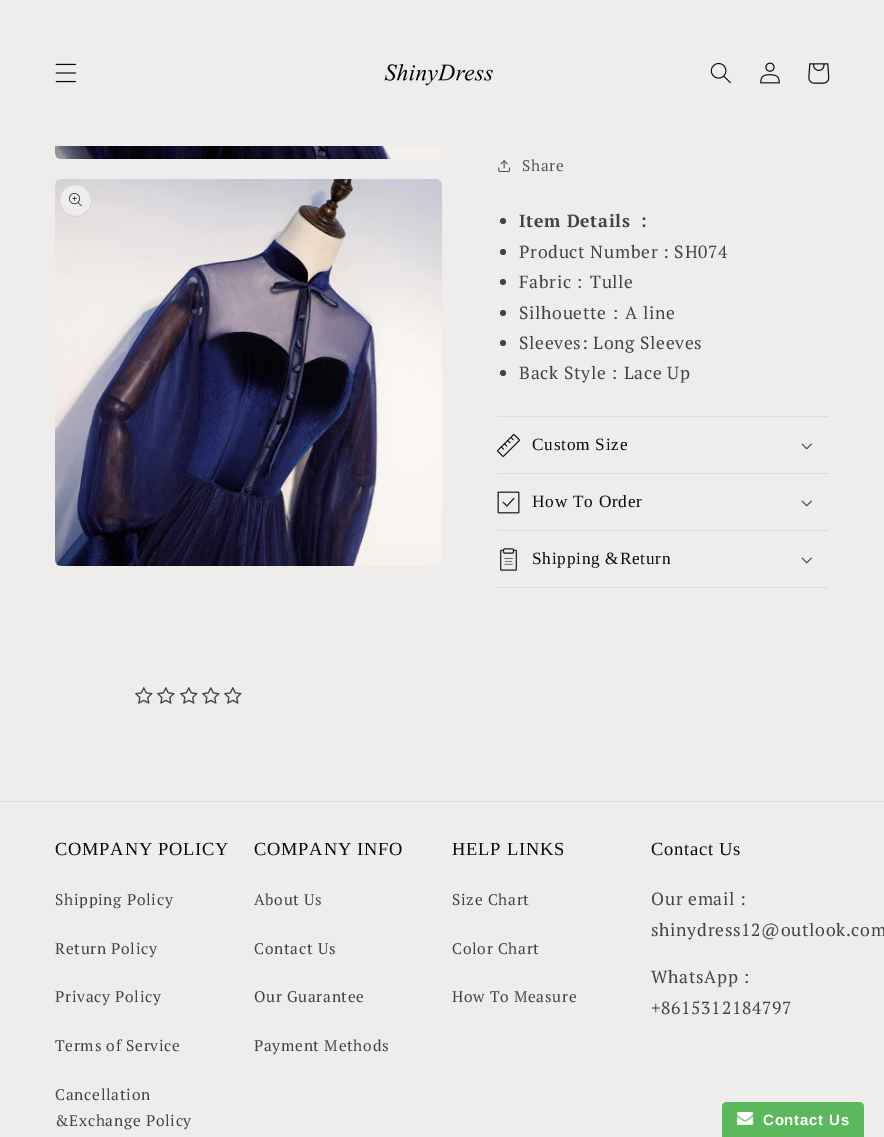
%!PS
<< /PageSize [884 1137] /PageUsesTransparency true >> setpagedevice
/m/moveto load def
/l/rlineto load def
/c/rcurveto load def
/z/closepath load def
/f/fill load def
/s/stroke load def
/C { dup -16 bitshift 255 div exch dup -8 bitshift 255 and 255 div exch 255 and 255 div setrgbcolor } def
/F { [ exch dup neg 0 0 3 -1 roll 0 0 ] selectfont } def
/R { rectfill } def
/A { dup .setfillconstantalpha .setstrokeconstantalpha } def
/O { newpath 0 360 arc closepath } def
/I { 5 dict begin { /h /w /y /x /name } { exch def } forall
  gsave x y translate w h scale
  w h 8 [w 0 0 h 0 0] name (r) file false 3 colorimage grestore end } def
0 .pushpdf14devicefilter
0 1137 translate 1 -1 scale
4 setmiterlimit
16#EFECEC C
0 0 884 1137 R
(1.rgb) 55 63 21 20 I
(2.rgb) 384 63 109 23 I
(3.rgb) 710 62 21 22 I
(4.rgb) 760 62 20 22 I
(5.rgb) 808 63 22 21 I
(6.rgb) 55 146 387 13 I
(7.rgb) 55 179 387 387 I
75.5 200.5 16.5 O f
0.1 A
16#0A0A0A C
75.5 200.5 16 O s
1 A
(8.rgb) 69 193 13 14 I
(9.rgb) 498 160 13 12 I
/PTSerif-Regular 15.5 F
16#505655 C
522 171 m .7 0 (Share) ashow
16#434343 C
503 221 3 O f
/PTSerif-Bold 17.6 F
519 227 m .7 0 (Item Details) ashow
/WenQuanYiZenHei-Bold 17.6 F
635 227 m .7 0 (：) ashow
503 252 3 O f
/PTSerif-Regular 17.6 F
519 258 m .7 0 (Product Number : SH074) ashow
503 282 3 O f
519 288 m .7 0 (Fabric) ashow
/WenQuanYiZenHei-Medium 17.6 F
571 288 m .7 0 (：) ashow
/PTSerif-Regular 17.6 F
590 288 m .7 0 (Tulle) ashow
503 313 3 O f
519 319 m .7 0 (Silhouette) ashow
/WenQuanYiZenHei-Medium 17.6 F
607 319 m .7 0 (：) ashow
/PTSerif-Regular 17.6 F
625 319 m .7 0 (A line) ashow
503 343 3 O f
519 349 m .7 0 (Sleeves: Long Sleeves) ashow
503 373 3 O f
519 379 m .7 0 (Back Style) ashow
/WenQuanYiZenHei-Medium 17.6 F
606 379 m .7 0 (：) ashow
/PTSerif-Regular 17.6 F
624 379 m .7 0 (Lace Up) ashow
16#DDDADA C
497 416 332 1 R
497 473 332 1 R
(10.rgb) 497 434 23 23 I
/LiberationSerif-Regular 17.25 F
16#0A0A0A C
532 450 m .75 0 (Custom Size) ashow
(11.rgb) 801 443 11 7 I
16#DDDADA C
497 530 332 1 R
(12.rgb) 497 491 23 23 I
16#0A0A0A C
532 507 m .75 0 (How To Order) ashow
(11.rgb) 801 500 11 7 I
16#DDDADA C
497 587 332 1 R
(13.rgb) 500 548 17 23 I
16#0A0A0A C
532 564 m .75 0 (Shipping &Return) ashow
(11.rgb) 801 557 11 7 I
(14.rgb) 135 687 18 17 I
(14.rgb) 157 687 18 17 I
(14.rgb) 180 687 18 17 I
(14.rgb) 202 687 18 17 I
(14.rgb) 224 687 18 17 I
16#DDDADA C
0 801 884 1 R
/LiberationSerif-Regular 18.5 F
16#0A0A0A C
55 855 m .75 0 (COMPANY POLICY) ashow
/PTSerif-Regular 15.5 F
16#434343 C
55 905 m .7 0 (Shipping Policy) ashow
55 954 m .7 0 (Return Policy) ashow
55 1002 m .7 0 (Privacy Policy) ashow
55 1051 m .7 0 (Terms of Service) ashow
55 1100 m .7 0 (Cancellation) ashow
55 1126 m .7 0 (&Exchange Policy) ashow
/LiberationSerif-Regular 18.5 F
16#0A0A0A C
254 855 m .75 0 (COMPANY INFO) ashow
/PTSerif-Regular 15.5 F
16#434343 C
254 905 m .7 0 (About Us) ashow
254 954 m .7 0 (Contact Us) ashow
254 1002 m .7 0 (Our Guarantee) ashow
254 1051 m .7 0 (Payment Methods) ashow
/LiberationSerif-Regular 18.5 F
16#0A0A0A C
452 855 m .75 0 (HELP LINKS) ashow
/PTSerif-Regular 15.5 F
16#434343 C
452 905 m .7 0 (Size Chart) ashow
452 954 m .7 0 (Color Chart) ashow
452 1002 m .7 0 (How To Measure) ashow
/LiberationSerif-Regular 18.5 F
16#0A0A0A C
651 855 m .75 0 (Contact Us) ashow
/PTSerif-Regular 17.6 F
16#434343 C
651 905 m .7 0 (Our email :) ashow
651 936 m .7 0 (shinydress12@outlook.com) ashow
651 983 m .7 0 (WhatsApp) ashow
/WenQuanYiZenHei-Medium 17.6 F
738 983 m .7 0 (：) ashow
/PTSerif-Regular 17.6 F
651 1014 m .7 0 (+8615312184797) ashow
16#5CB85C C
727 1102 m 132 0 l 3 0 5 2 5 5 c 0 30 l -142 0 l 0 -30 l 0 -3 2 -5 5 -5 c z f
(15.rgb) 736 1112 18 13 I
/LiberationSans-Bold 15 F
16#FFFFFF C
763 1125 m .75 0 (Contact Us) ashow
.poppdf14devicefilter showpage
